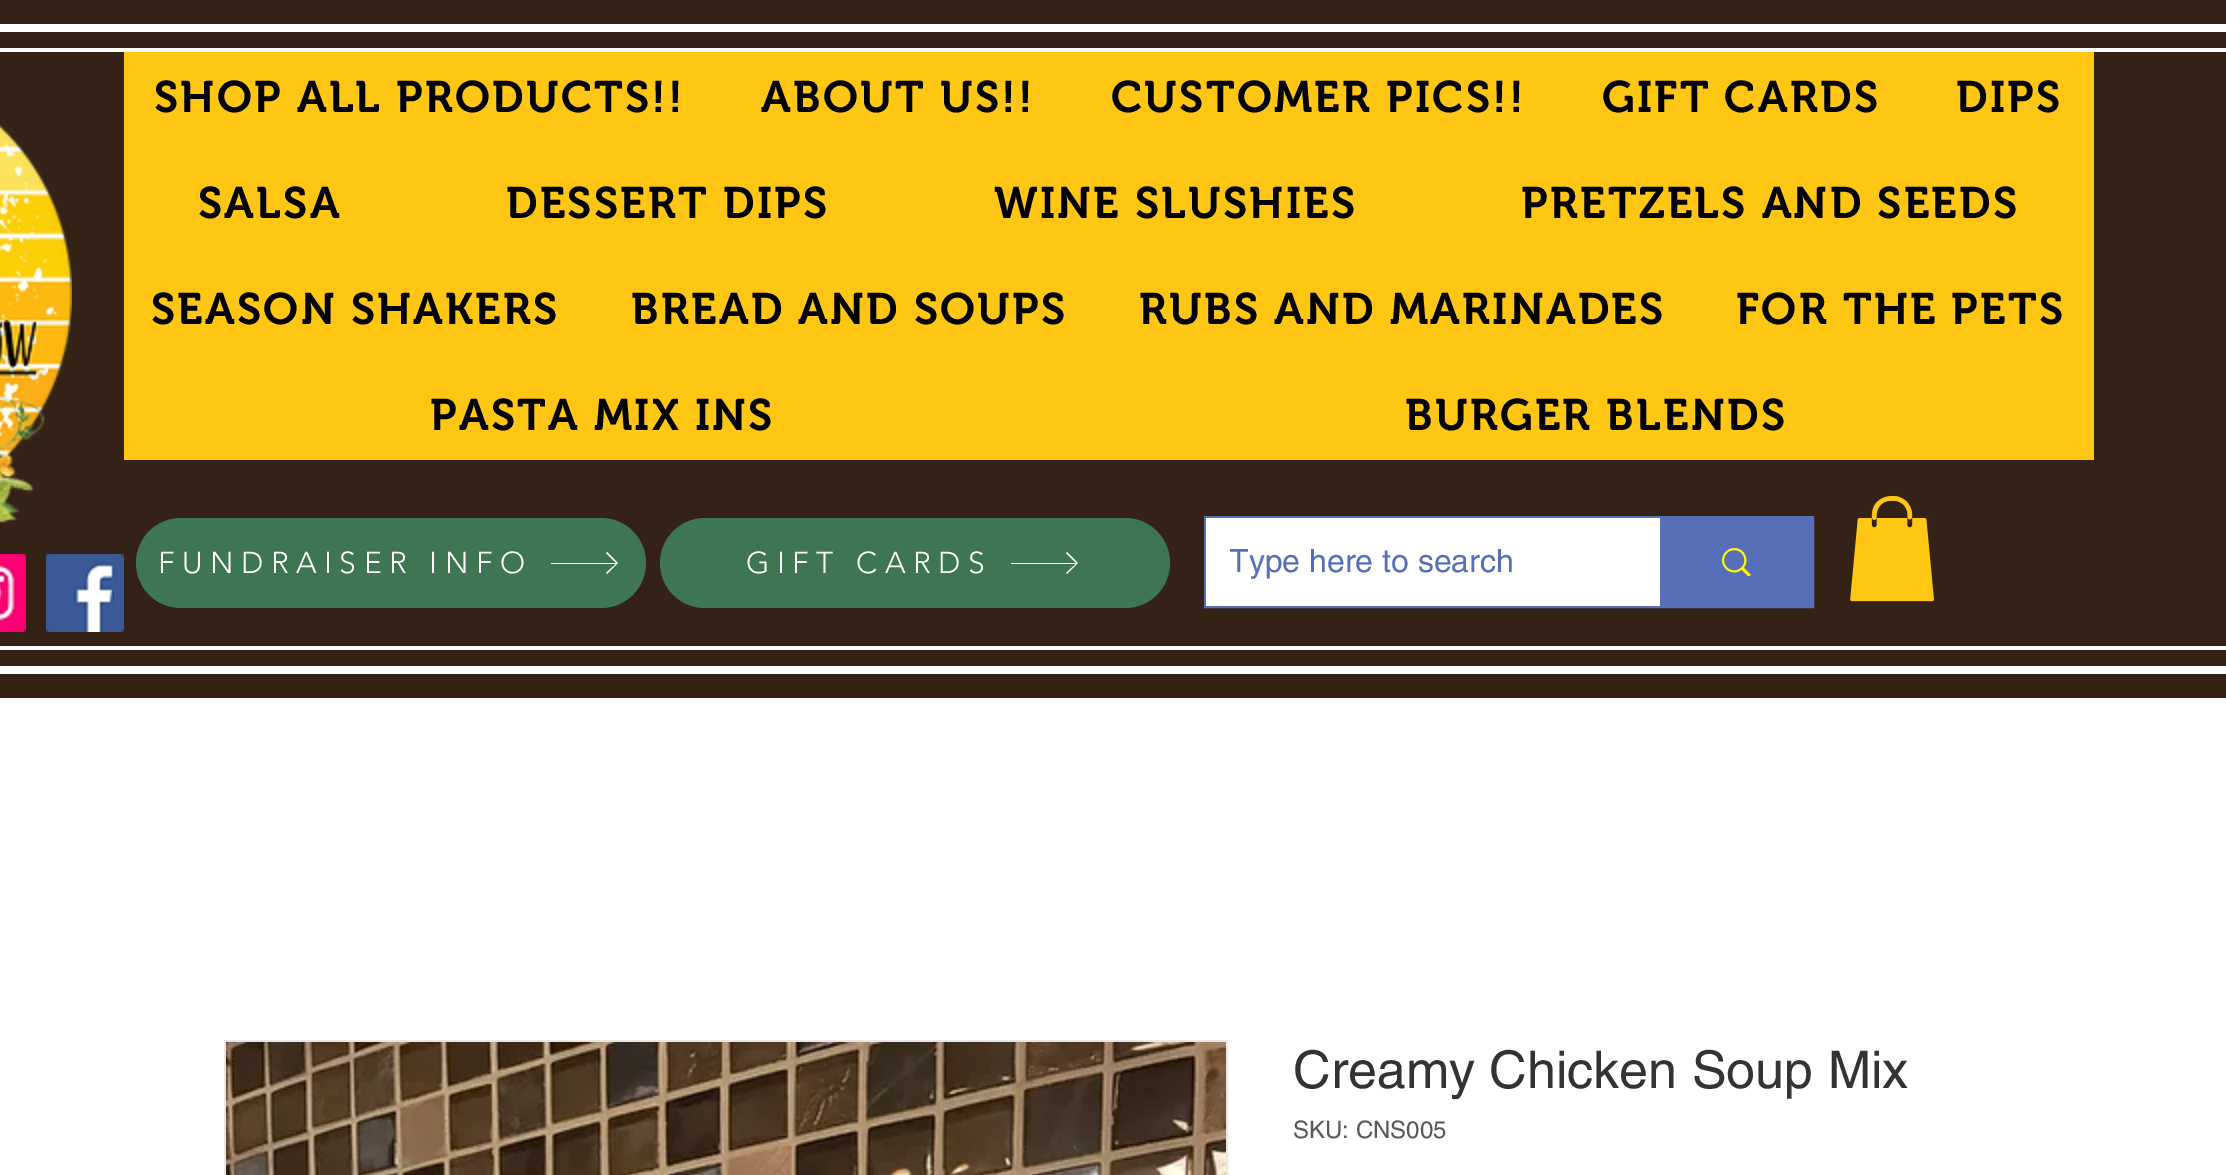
%!PS
<< /PageSize [2226 1175] >> setpagedevice
/m/moveto load def
/l/rlineto load def
/z/closepath load def
/f/fill load def
/q/gsave load def
/Q_/grestore load def
/w/setlinewidth load def
/C { dup -16 bitshift 255 div exch dup -8 bitshift 255 and 255 div exch 255 and 255 div setrgbcolor } def
/F { [ exch dup neg 0 0 3 -1 roll 0 0 ] selectfont } def
/T { moveto show } def
/R { rectfill } def
/Q { 5 dict begin { /r /h /w /y /x } { exch def } forall
  x r add y moveto x w add y 2 copy h add r arct x w add y h add x 1 index r arct
  x y h add x y r arct x y 2 copy exch w add exch r arct closepath end } def
/I { 5 dict begin { /h /w /y /x /name } { exch def } forall
  gsave x y translate w h scale
  w h 8 [w 0 0 h 0 0] name (r) file false 3 colorimage grestore end } def
0 1175 translate 1 -1 scale
4 setmiterlimit
16#FFFFFF C
0 0 2226 1175 R
16#342216 C
0 0 2226 698 R
16#FFFFFF C
0 24 2226 8 R
0 666 2226 8 R
0 48 2226 4 R
0 646 2226 4 R
(1.rgb) 0 124 72 399 I
16#FFC714 C
124 52 1970 408 R
/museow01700-SemiBold 44 F
16#000000 C
154 112 m 2.25 0 (SHOP ALL PRODUCTS!!) ashow
761 112 m 2.25 0 (ABOUT US!!) ashow
1111 112 m 2.25 0 (CUSTOMER PICS!!) ashow
1602 112 m 2.25 0 (GIFT CARDS) ashow
1956 112 m 2.25 0 (DIPS) ashow
198 218 m 2.25 0 (SALSA) ashow
506 218 m 2.25 0 (DESSERT DIPS) ashow
994 218 m 2.25 0 (WINE SLUSHIES) ashow
1521 218 m 2.25 0 (PRETZELS AND SEEDS) ashow
151 324 m 2.25 0 (SEASON SHAKERS) ashow
631 324 m 2.25 0 (BREAD AND SOUPS) ashow
1139 324 m 2.25 0 (RUBS AND MARINADES) ashow
1736 324 m 2.25 0 (FOR THE PETS) ashow
430 430 m 2.25 0 (PASTA MIX INS) ashow
1405 430 m 2.25 0 (BURGER BLENDS) ashow
(2.rgb) 0 554 26 78 I
(3.rgb) 46 554 78 78 I
16#3F7652 C
136 518 510 90 45 Q f
/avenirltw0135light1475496-Light 30 F
16#FFFFFF C
158 573 m 7.5 0 (FUNDRAISER INFO) ashow
607 552 m -1 1 l 10 10 l -65 0 l 0 1 l 65 0 l -10 9 l 1 1 l 11 -11 l z f
16#3F7652 C
660 518 510 90 45 Q f
16#FFFFFF C
746 573 m 7.5 0 (GIFT CARDS) ashow
1067 552 m -1 1 l 10 10 l -65 0 l 0 1 l 65 0 l -10 9 l 1 1 l 11 -11 l z f
16#566FB8 C
2 w
1205 517 608 90 rectstroke
16#FFFFFF C
1206 518 454 88 R
q
1230 542 346 38 rectclip
/helvetica-Regular 32 F
16#566FB8 C
(Type here to search) 1229 572 T
Q_
16#566FB8 C
1660 518 152 88 R
(4.rgb) 1722 548 29 28 I
(5.rgb) 1850 496 84 106 I
16#E8E6E6 C
225 1041 1002 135 rectstroke
(6.rgb) 226 1042 1000 133 I
/helvetica-Regular 52 F
16#333333 C
(Creamy Chicken Soup Mix) 1293 1088 T
/helvetica-Regular 24 F
16#595959 C
(SKU: CNS005) 1293 1138 T
showpage
